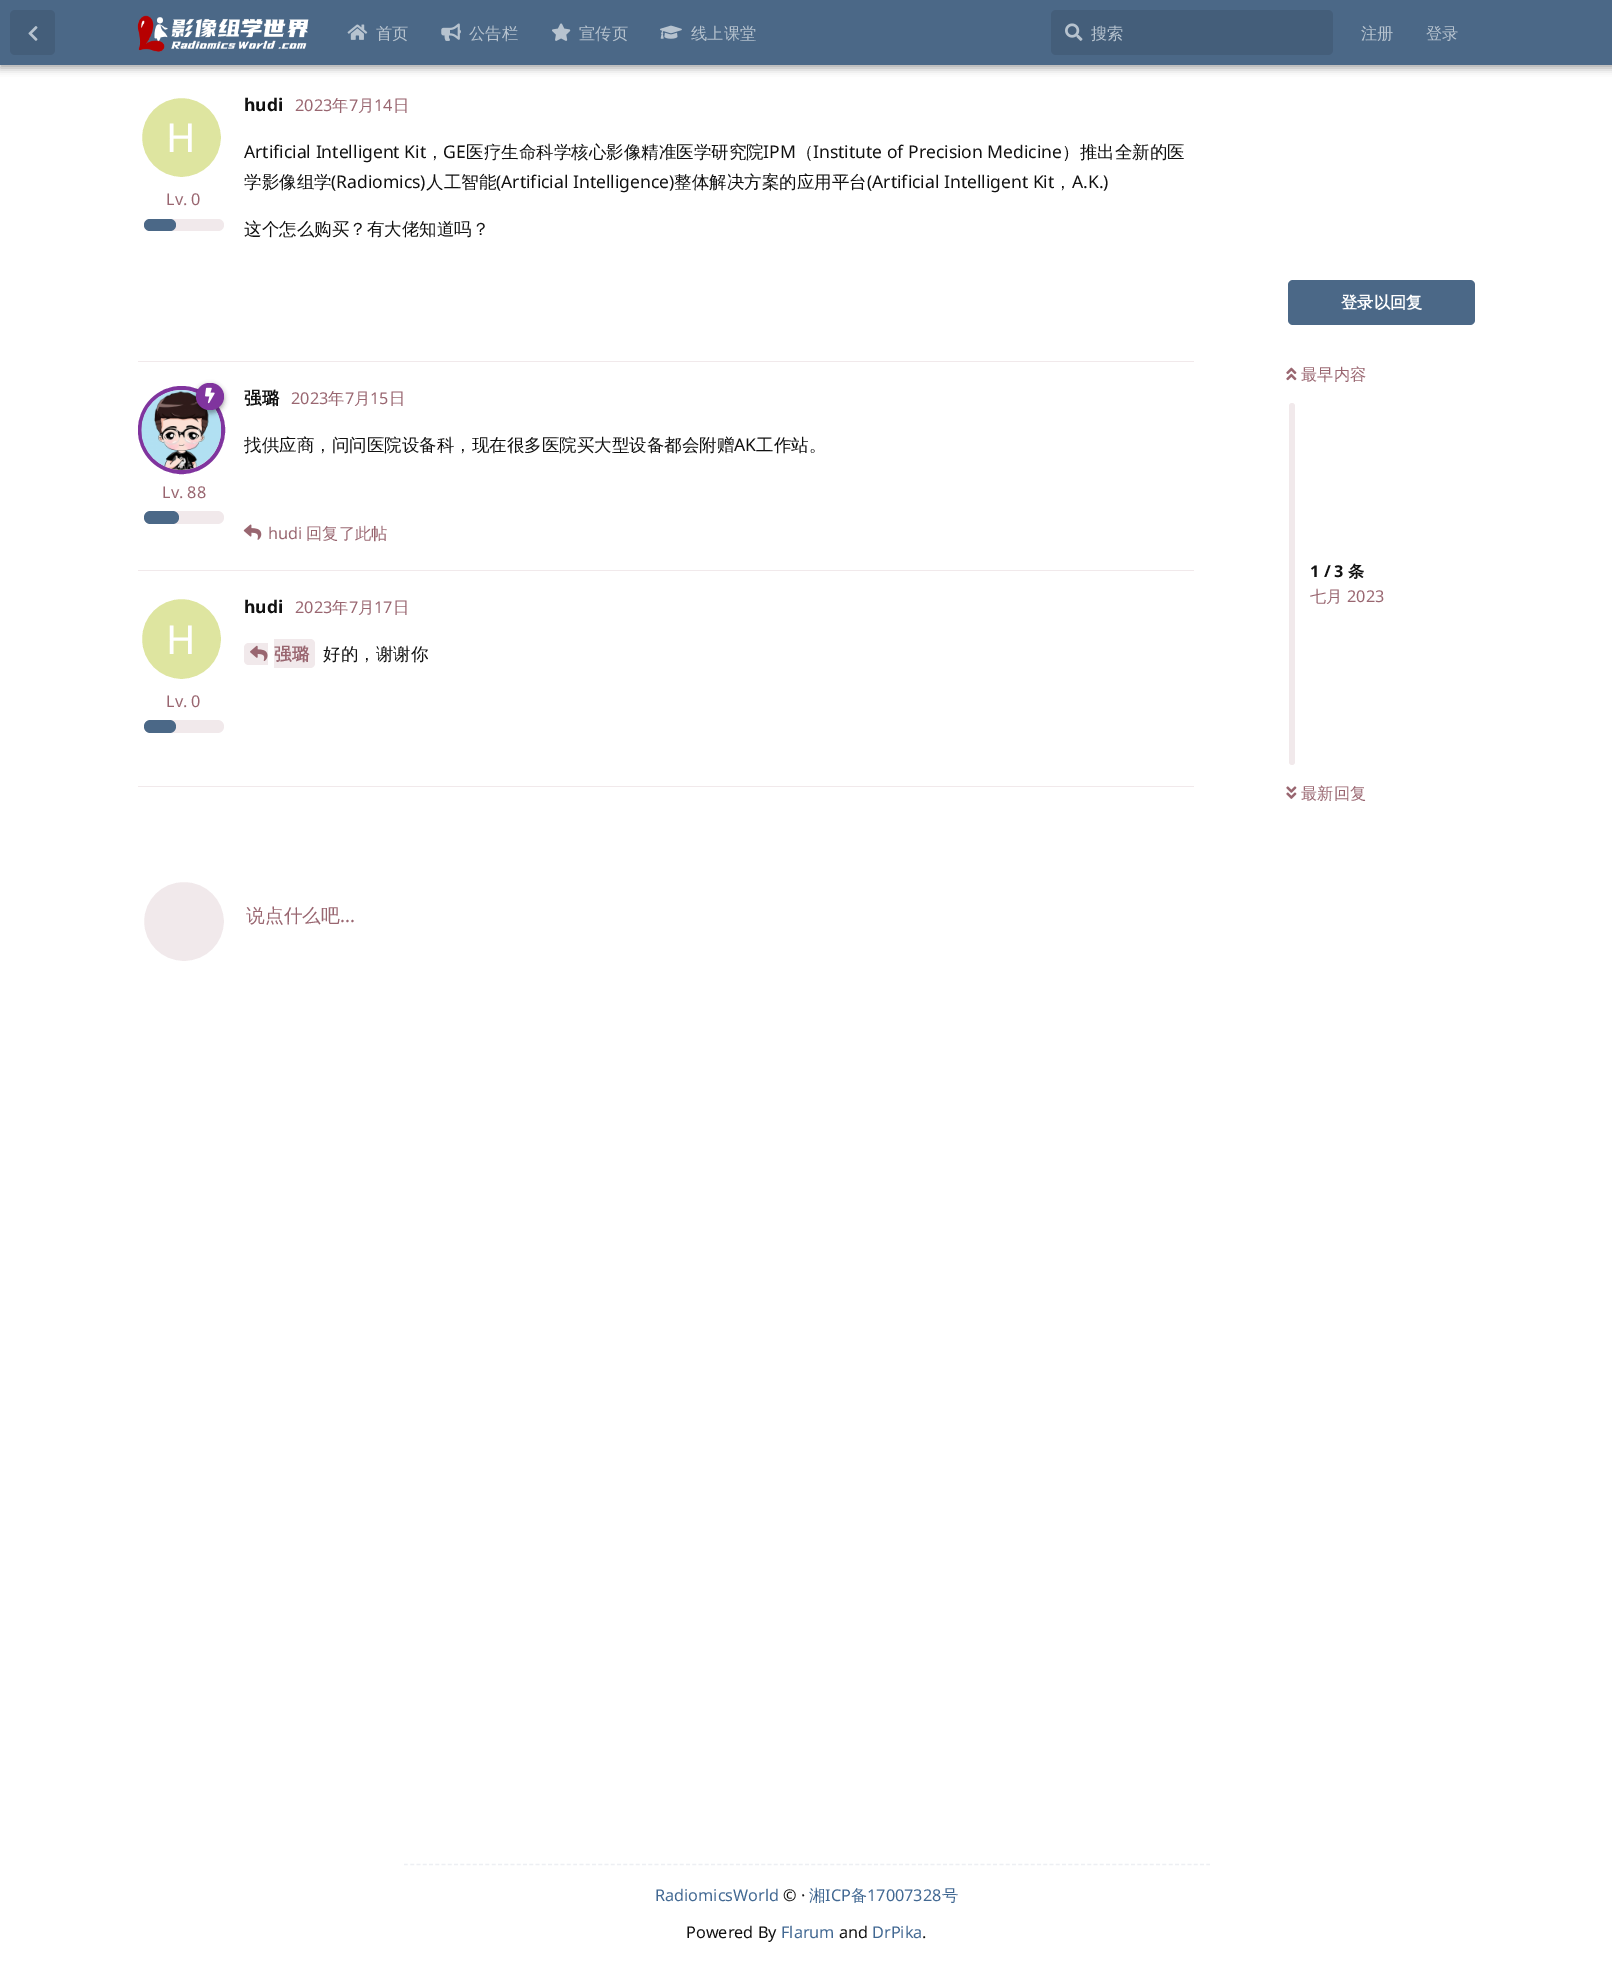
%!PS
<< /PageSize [1612 1967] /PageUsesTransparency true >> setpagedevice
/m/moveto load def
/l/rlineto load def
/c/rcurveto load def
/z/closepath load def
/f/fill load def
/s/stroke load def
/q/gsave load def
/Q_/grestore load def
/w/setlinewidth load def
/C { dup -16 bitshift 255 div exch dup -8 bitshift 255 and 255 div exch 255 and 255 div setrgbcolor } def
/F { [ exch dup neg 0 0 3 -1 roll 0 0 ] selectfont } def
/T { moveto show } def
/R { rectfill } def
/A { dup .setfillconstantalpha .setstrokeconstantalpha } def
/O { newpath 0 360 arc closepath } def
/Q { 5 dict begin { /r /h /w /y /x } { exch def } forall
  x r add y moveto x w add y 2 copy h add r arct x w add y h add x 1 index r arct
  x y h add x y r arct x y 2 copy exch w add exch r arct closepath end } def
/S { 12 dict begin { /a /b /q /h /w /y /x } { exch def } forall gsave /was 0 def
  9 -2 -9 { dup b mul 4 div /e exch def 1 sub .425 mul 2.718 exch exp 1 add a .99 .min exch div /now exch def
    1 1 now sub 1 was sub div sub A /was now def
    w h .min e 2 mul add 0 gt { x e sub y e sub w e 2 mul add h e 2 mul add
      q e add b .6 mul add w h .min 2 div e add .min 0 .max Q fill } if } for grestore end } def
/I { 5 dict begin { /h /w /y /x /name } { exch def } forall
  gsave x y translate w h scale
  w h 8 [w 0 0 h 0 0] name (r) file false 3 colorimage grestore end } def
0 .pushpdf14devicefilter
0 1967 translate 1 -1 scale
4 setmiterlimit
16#FFFFFF C
0 0 1612 1967 R
16#000000 C
0 3 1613 65 0 4 .35 S
16#4B6887 C
0 0 1612 65 R
16#445E7A C
10 10 45 45 5 Q f
(1.rgb) 28 26 10 15 I
(2.rgb) 137 15 172 37 I
(3.rgb) 347 24 21 16 I
/WenQuanYiZenHei-Medium 16.25 F
16#B7C3CF C
(首页) 376 39 T
(4.rgb) 441 23 20 18 I
(公告栏) 469 39 T
(5.rgb) 552 23 19 18 I
(宣传页) 579 39 T
(6.rgb) 660 25 22 14 I
(线上课堂) 691 39 T
16#445E7A C
1051 10 282 45 5 Q f
(7.rgb) 1065 23 18 18 I
16#B7C3CF C
(搜索) 1091 39 T
(注册) 1361 39 T
(登录) 1426 39 T
16#F1E9EB C
138 361 1056 1 R
/NotoSans-Bold 17.5 F
16#111111 C
(hudi) 244 111 T
16#DEE5A0 C
181.5 137.5 41.5 O q f Q_
16#FFFFFF C
4 w
s
/NotoSans-Regular 40 F
(H) 166 152 T
/NotoSans-Regular 16.25 F
16#996670 C
(Lv. 0) 166 205 T
16#F1E9EB C
144 219 80 12 6 Q f
16#4B6887 C
144 219 32 12 6 Q f
16#996670 C
(2023) 295 111 T
/WenQuanYiZenHei-Medium 16.25 F
(年) 332 111 T
/NotoSans-Regular 16.25 F
(7) 349 111 T
/WenQuanYiZenHei-Medium 16.25 F
(月) 358 111 T
/NotoSans-Regular 16.25 F
(14) 374 111 T
/WenQuanYiZenHei-Medium 16.25 F
(日) 393 111 T
/NotoSans-Regular 17.5 F
16#111111 C
(Artificial Intelligent Kit) 244 158 T
/WenQuanYiZenHei-Medium 17.5 F
(，) 426 158 T
/NotoSans-Regular 17.5 F
(GE) 443 158 T
/WenQuanYiZenHei-Medium 17.5 F
(医疗生命科学核心影像精准医学研究院) 466 158 T
/NotoSans-Regular 17.5 F
(IPM) 763 158 T
/WenQuanYiZenHei-Medium 17.5 F
(（) 796 158 T
/NotoSans-Regular 17.5 F
(Institute of Precision Medicine) 813 158 T
/WenQuanYiZenHei-Medium 17.5 F
(）推出全新的医) 1062 158 T
(学影像组学) 244 188 T
/NotoSans-Regular 17.5 F
(\(Radiomics\)) 331 188 T
/WenQuanYiZenHei-Medium 17.5 F
(人工智能) 426 188 T
/NotoSans-Regular 17.5 F
(\(Artificial Intelligence\)) 496 188 T
/WenQuanYiZenHei-Medium 17.5 F
(整体解决方案的应用平台) 674 188 T
/NotoSans-Regular 17.5 F
(\(Artificial Intelligent Kit) 867 188 T
/WenQuanYiZenHei-Medium 17.5 F
(，) 1054 188 T
/NotoSans-Regular 17.5 F
(A.K.\)) 1072 188 T
/WenQuanYiZenHei-Medium 17.5 F
(这个怎么购买？有大佬知道吗？) 244 235 T
16#F1E9EB C
138 570 1056 1 R
140 388 83 84 41.5 Q q f Q_
16#80349E C
s
(9.rgb) 141 390 81 80 I
16#000000 C
196 385 28 28 14 2.5 .35 S
16#80349E C
196 383 28 27 13.5 Q f
(8.rgb) 205 387 10 17 I
/WenQuanYiZenHei-Bold 17.5 F
16#111111 C
(强璐) 244 404 T
/NotoSans-Regular 16.25 F
16#996670 C
(Lv. 88) 162 498 T
16#F1E9EB C
144 511 80 13 6.5 Q f
16#4B6887 C
144 511 35 13 6.5 Q f
16#996670 C
(2023) 291 404 T
/WenQuanYiZenHei-Medium 16.25 F
(年) 328 404 T
/NotoSans-Regular 16.25 F
(7) 345 404 T
/WenQuanYiZenHei-Medium 16.25 F
(月) 354 404 T
/NotoSans-Regular 16.25 F
(15) 370 404 T
/WenQuanYiZenHei-Medium 16.25 F
(日) 389 404 T
/WenQuanYiZenHei-Medium 17.5 F
16#111111 C
(找供应商，问问医院设备科，现在很多医院买大型设备都会附赠) 244 451 T
/NotoSans-Regular 17.5 F
(AK) 734 451 T
/WenQuanYiZenHei-Medium 17.5 F
(工作站。) 756 451 T
(10.rgb) 243 524 19 16 I
/NotoSans-Regular 16.25 F
16#996670 C
(hudi) 268 539 T
/WenQuanYiZenHei-Medium 16.25 F
(回复了此帖) 306 539 T
16#F1E9EB C
138 786 1056 1 R
/NotoSans-Bold 17.5 F
16#111111 C
(hudi) 244 613 T
16#DEE5A0 C
140 597 83 84 41.5 Q q f Q_
16#FFFFFF C
s
/NotoSans-Regular 40 F
(H) 166 654 T
/NotoSans-Regular 16.25 F
16#996670 C
(Lv. 0) 166 707 T
16#F1E9EB C
144 720 80 13 6.5 Q f
16#4B6887 C
144 720 32 13 6.5 Q f
16#996670 C
(2023) 295 613 T
/WenQuanYiZenHei-Medium 16.25 F
(年) 332 613 T
/NotoSans-Regular 16.25 F
(7) 349 613 T
/WenQuanYiZenHei-Medium 16.25 F
(月) 358 613 T
/NotoSans-Regular 16.25 F
(17) 374 613 T
/WenQuanYiZenHei-Medium 16.25 F
(日) 393 613 T
16#F1E9EB C
249 643 m 19 0 l 0 22 l -19 0 l -3 0 -5 -2 -5 -5 c 0 -12 l 0 -3 2 -5 5 -5 c z f
274 639 m 36 0 l 3 0 5 2 5 5 c 0 19 l 0 3 -2 5 -5 5 c -36 0 l z f
(11.rgb) 250 645 18 16 I
/WenQuanYiZenHei-Bold 17.5 F
16#996670 C
(强璐) 274 660 T
/WenQuanYiZenHei-Medium 17.5 F
16#111111 C
(好的，谢谢你) 323 660 T
16#F1E9EB C
142 880 84 83 41.5 Q q f Q_
16#FFFFFF C
s
/WenQuanYiZenHei-Medium 18.75 F
16#996670 C
(说点什么吧) 246 922 T
/NotoSans-Regular 18.75 F
(...) 340 922 T
16#4B6887 C
1288 280 187 45 5 Q f
/WenQuanYiZenHei-Bold 16.25 F
16#FFFFFF C
(登录以回复) 1341 308 T
(12.rgb) 1286 367 11 14 I
/WenQuanYiZenHei-Medium 16.25 F
16#996670 C
(最早内容) 1301 380 T
16#F1E9EB C
1289 403 6 362 3 Q f
/NotoSans-Bold 16.25 F
16#111111 C
(1 / 3) 1310 577 T
/WenQuanYiZenHei-Bold 16.25 F
(条) 1348 577 T
/WenQuanYiZenHei-Medium 16.25 F
16#996670 C
(七月) 1310 602 T
/NotoSans-Regular 16.25 F
(2023) 1347 602 T
(13.rgb) 1286 786 11 13 I
/WenQuanYiZenHei-Medium 16.25 F
(最新回复) 1301 799 T
16#EDEFF3 C
1.2 w
[3.75 2.52] 0 setdash
404 1864.5 m 806 0 l s
/NotoSans-Regular 16.25 F
16#416892 C
(RadiomicsWorld) 655 1901 T
16#111111 C
(© ·) 783 1901 T
/WenQuanYiZenHei-Medium 16.25 F
16#416892 C
(湘) 809 1901 T
/NotoSans-Regular 16.25 F
(ICP) 825 1901 T
/WenQuanYiZenHei-Medium 16.25 F
(备) 851 1901 T
/NotoSans-Regular 16.25 F
(17007328) 867 1901 T
/WenQuanYiZenHei-Medium 16.25 F
(号) 942 1901 T
/NotoSans-Regular 16.25 F
16#111111 C
(Powered By) 686 1938 T
16#416892 C
(Flarum) 781 1938 T
16#111111 C
(and) 839 1938 T
16#416892 C
(DrPika) 872 1938 T
16#111111 C
(.) 922 1938 T
.poppdf14devicefilter showpage
